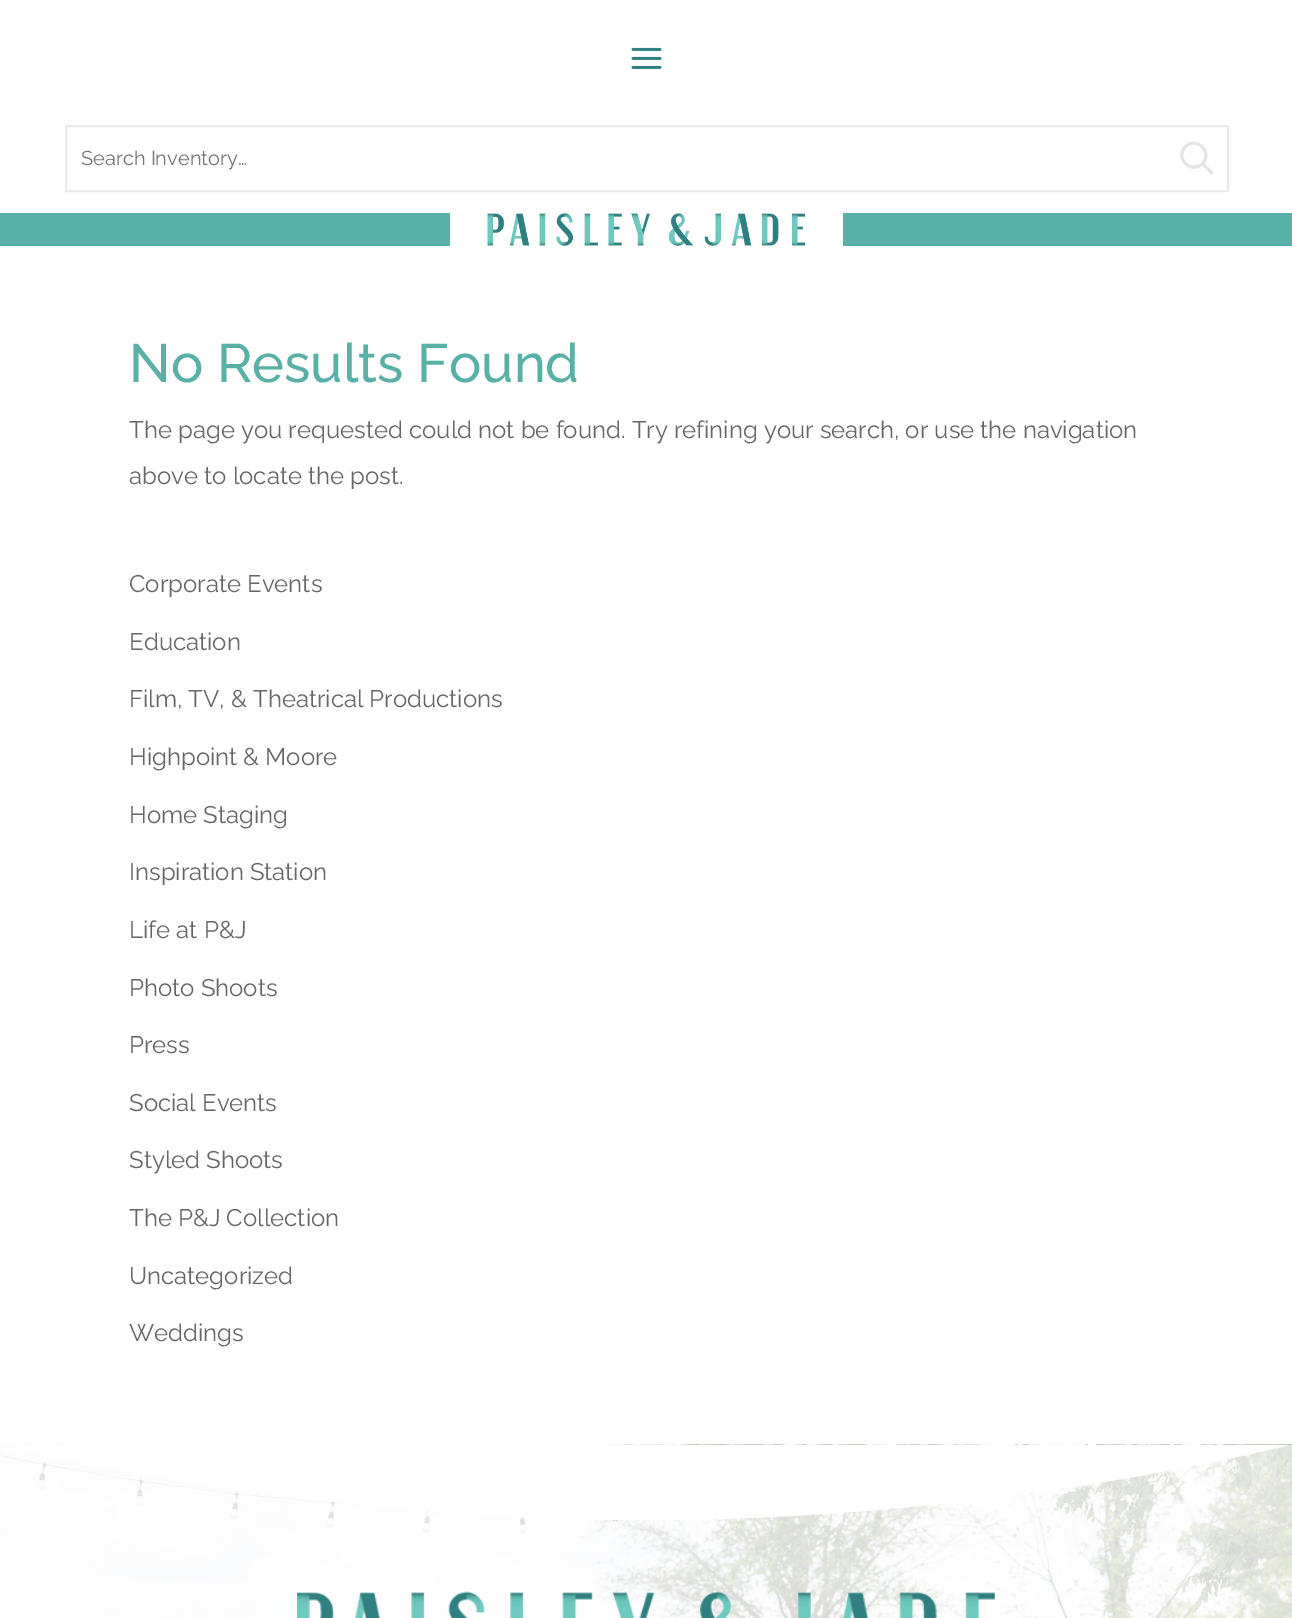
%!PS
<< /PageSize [1292 1618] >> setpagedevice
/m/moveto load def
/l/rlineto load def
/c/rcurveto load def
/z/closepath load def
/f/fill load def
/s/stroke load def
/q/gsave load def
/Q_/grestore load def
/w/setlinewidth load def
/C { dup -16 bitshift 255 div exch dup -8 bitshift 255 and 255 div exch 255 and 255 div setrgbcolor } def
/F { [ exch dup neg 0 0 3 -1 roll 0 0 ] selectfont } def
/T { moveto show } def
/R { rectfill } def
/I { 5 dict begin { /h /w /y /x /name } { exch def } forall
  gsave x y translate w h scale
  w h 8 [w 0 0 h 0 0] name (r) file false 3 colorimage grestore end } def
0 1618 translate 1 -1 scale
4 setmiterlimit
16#FFFFFF C
0 0 1292 1618 R
(1.rgb) 631 47 31 22 I
16#EAEAEA C
2 w
66 126 1162 65 rectstroke
/Raleway-Regular 20 F
16#757575 C
(Search Inventory…) 81 165 T
16#E3E5E9 C
3 w
1185.5 146.5 m 11 -11 28 6 17 17 c -11.5 11.5 -28.5 -5.5 -17 -17 c z s
2 setlinecap
1203 164 m 8.5 8.5 l s
16#59B0A7 C
0 213 1292 33 R
16#FFFFFF C
450 213 393 33 R
(2.rgb) 487 213 318 33 I
/Raleway-Medium 54 F
16#59B0A7 C
(No Results Found) 129 382 T
/Raleway-Regular 24 F
16#666666 C
(The page you requested could not be found. Try refining your search, or use the navigation) 129 438 T
(above to locate the post.) 129 484 T
(Corporate Events) 129 592 T
(Education) 129 650 T
(Film, TV, & Theatrical Productions) 129 707 T
(Highpoint & Moore) 129 765 T
(Home Staging) 129 823 T
(Inspiration Station) 129 880 T
(Life at P&J) 129 938 T
(Photo Shoots) 129 996 T
(Press) 129 1053 T
(Social Events) 129 1111 T
(Styled Shoots) 129 1168 T
(The P&J Collection) 129 1226 T
(Uncategorized) 129 1284 T
(Weddings) 129 1341 T
(3.rgb) 0 1444 1292 174 I
q
0 1445 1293 75 rectclip
16#FFFFFF C
646 1520 m -357 0 -646 -76 -646 -76 c 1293 0 l 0 0 -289 76 -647 76 c z f
Q_
(4.rgb) 297 1591 698 27 I
showpage
